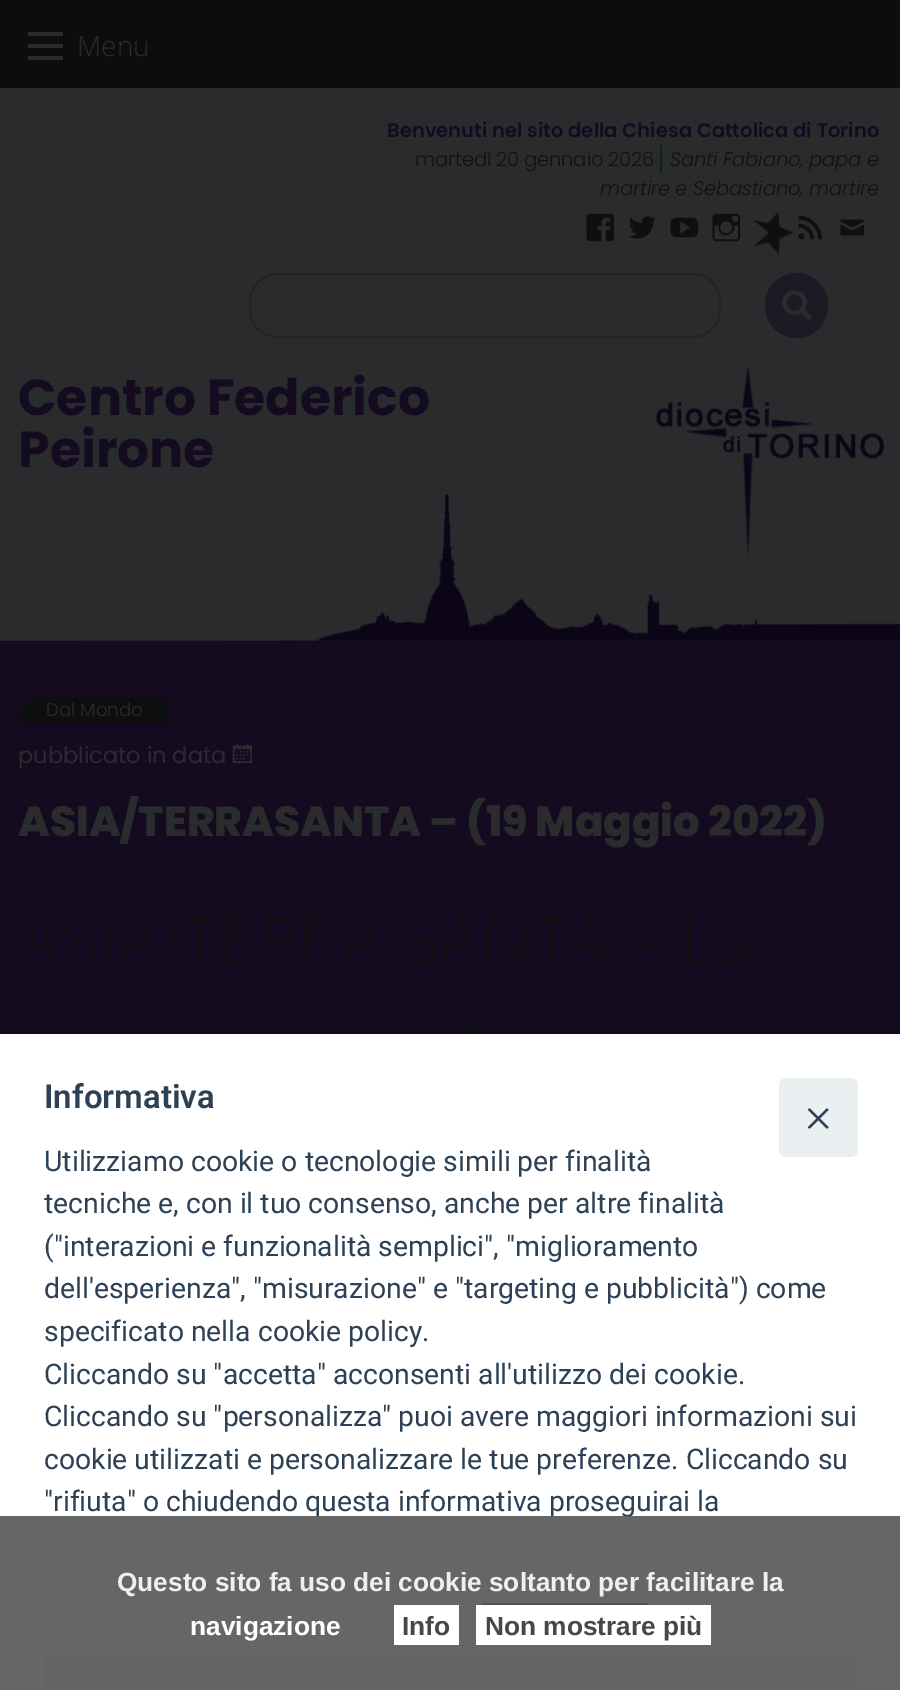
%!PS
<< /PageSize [900 1690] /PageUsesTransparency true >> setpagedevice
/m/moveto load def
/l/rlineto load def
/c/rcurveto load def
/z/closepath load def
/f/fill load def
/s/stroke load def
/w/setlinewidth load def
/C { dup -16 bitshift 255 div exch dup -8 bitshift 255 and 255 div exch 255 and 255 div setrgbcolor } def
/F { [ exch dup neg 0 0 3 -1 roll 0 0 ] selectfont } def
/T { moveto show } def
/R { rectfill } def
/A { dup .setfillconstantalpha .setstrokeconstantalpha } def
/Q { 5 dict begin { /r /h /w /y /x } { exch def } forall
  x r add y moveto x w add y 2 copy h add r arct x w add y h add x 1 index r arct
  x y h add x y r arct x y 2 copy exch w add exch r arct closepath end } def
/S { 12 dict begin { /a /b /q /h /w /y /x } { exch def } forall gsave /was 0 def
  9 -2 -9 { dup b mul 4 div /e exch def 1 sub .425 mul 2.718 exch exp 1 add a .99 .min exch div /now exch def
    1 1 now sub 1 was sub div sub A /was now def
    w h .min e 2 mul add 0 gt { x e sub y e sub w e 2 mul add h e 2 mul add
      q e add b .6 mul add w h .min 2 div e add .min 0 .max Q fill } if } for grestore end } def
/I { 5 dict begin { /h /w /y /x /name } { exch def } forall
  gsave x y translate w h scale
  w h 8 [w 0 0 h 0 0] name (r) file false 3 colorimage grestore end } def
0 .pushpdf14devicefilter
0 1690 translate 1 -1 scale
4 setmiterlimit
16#292B2D C
0 0 900 1690 R
16#0B0D0E C
0 0 900 88 R
16#2A2B2D C
28 56 35 4 R
28 44 35 4 R
28 32 35 4 R
/OpenSans-Light 28 F
(Menu) 77 56 T
(1.rgb) 0 494 900 147 I
/Poppins-SemiBold 19.6 F
16#140B21 C
(Benvenuti nel sito della Chiesa Cattolica di Torino) 387 137 T
/Poppins-Light 19.6 F
16#101113 C
415 166 m -.2 0 (martedì 20 gennaio 2026) ashow
/Poppins-LightItalic 19.6 F
670 166 m -.2 0 (Santi Fabiano, papa e) ashow
16#0E2314 C
660 145 2 28 R
16#101113 C
600 195 m -.2 0 (martire e Sebastiano, martire) ashow
(2.rgb) 586 213 29 29 I
(3.rgb) 628 216 28 23 I
(4.rgb) 670 217 29 21 I
(5.rgb) 712 213 29 29 I
(6.rgb) 753 211 41 43 I
(7.rgb) 798 215 24 25 I
(8.rgb) 840 219 25 17 I
16#222325 C
2 w
250 274 470 63 27 Q s
16#1D1925 C
765 273 63 65 31.5 Q f
(9.rgb) 782 290 30 30 I
/Poppins-Bold 50.5 F
16#140B21 C
(Centro Federico) 18 415 T
(Peirone) 18 467 T
(10.rgb) 656 366 228 190 I
0 641 900 393 R
16#0C0E10 C
44 697 m 126 0 l 0 26 l -152 0 l 0 -14.5 11.5 -26 26 -26 c z f
/Poppins-Light 18.25 F
16#2A2B2D C
(Dal Mondo) 46 716 T
/Poppins-Regular 22.5 F
(pubblicato in data) 18 763 T
(11.rgb) 232 743 20 20 I
/Poppins-ExtraBold 42 F
(ASIA/TERRASANTA – \(19 Maggio 2022\)) 18 836 T
/OpenSans-Light 70 F
16#101113 C
(ASIA/TERRA SANTA – La) 18 966 T
(“) 462 1064 T
16#020203 C
0 1054 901 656 0 29.5 .28 S
16#FFFFFF C
0 1034 900 656 R
16#EAEFF2 C
779 1078 79 79 7 Q f
16#2D4156 C
828 1109 m .5 .5 .5 1 0 1.5 c -17.5 17.5 l -.5 .5 -1.5 .5 -2 0 c -.5 -.5 -.5 -1 0 -1.5 c 17.5 -17.5 l .5 -.5 1.5 -.5 2 0 c z f
808.5 1109 m .5 -.5 1.5 -.5 2 0 c 17.5 17.5 l .5 .5 .5 1 0 1.5 c -.5 .5 -1.5 .5 -2 0 c -17.5 -17.5 l -.5 -.5 -.5 -1 0 -1.5 c z f
/Roboto-SemiBold 33 F
(Informativa) 44 1108 T
/Roboto-Regular 28.35 F
(Utilizziamo cookie o tecnologie simili per finalità) 44 1171 T
(tecniche e, con il tuo consenso, anche per altre finalità) 44 1213 T
(\("interazioni e funzionalità semplici", "miglioramento) 44 1256 T
(dell'esperienza", "misurazione" e "targeting e pubblicità"\) come) 44 1298 T
(specificato nella cookie policy.) 44 1341 T
(Cliccando su "accetta" acconsenti all'utilizzo dei cookie.) 44 1384 T
(Cliccando su "personalizza" puoi avere maggiori informazioni sui) 44 1426 T
(cookie utilizzati e personalizzare le tue preferenze. Cliccando su) 44 1469 T
("rifiuta" o chiudendo questa informativa proseguirai la) 44 1511 T
481 1603 167 2 R
16#EAEFF2 C
51 1654 m 800 0 l 4 0 7 3 7 7 c 0 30 l -814 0 l 0 -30 l 0 -4 3 -7 7 -7 c z f
0.9 A
16#555555 C
0 1516 900 174 R
/LiberationSans-Bold 26.25 F
1 A
16#EFEFEF C
(Questo sito fa uso dei cookie soltanto per facilitare la) 117 1591 T
16#FFFFFF C
(navigazione) 190 1635 T
394 1605 65 40 R
16#474747 C
(Info) 402 1635 T
16#FFFFFF C
476 1605 235 40 R
16#474747 C
(Non mostrare più) 485 1635 T
.poppdf14devicefilter showpage
